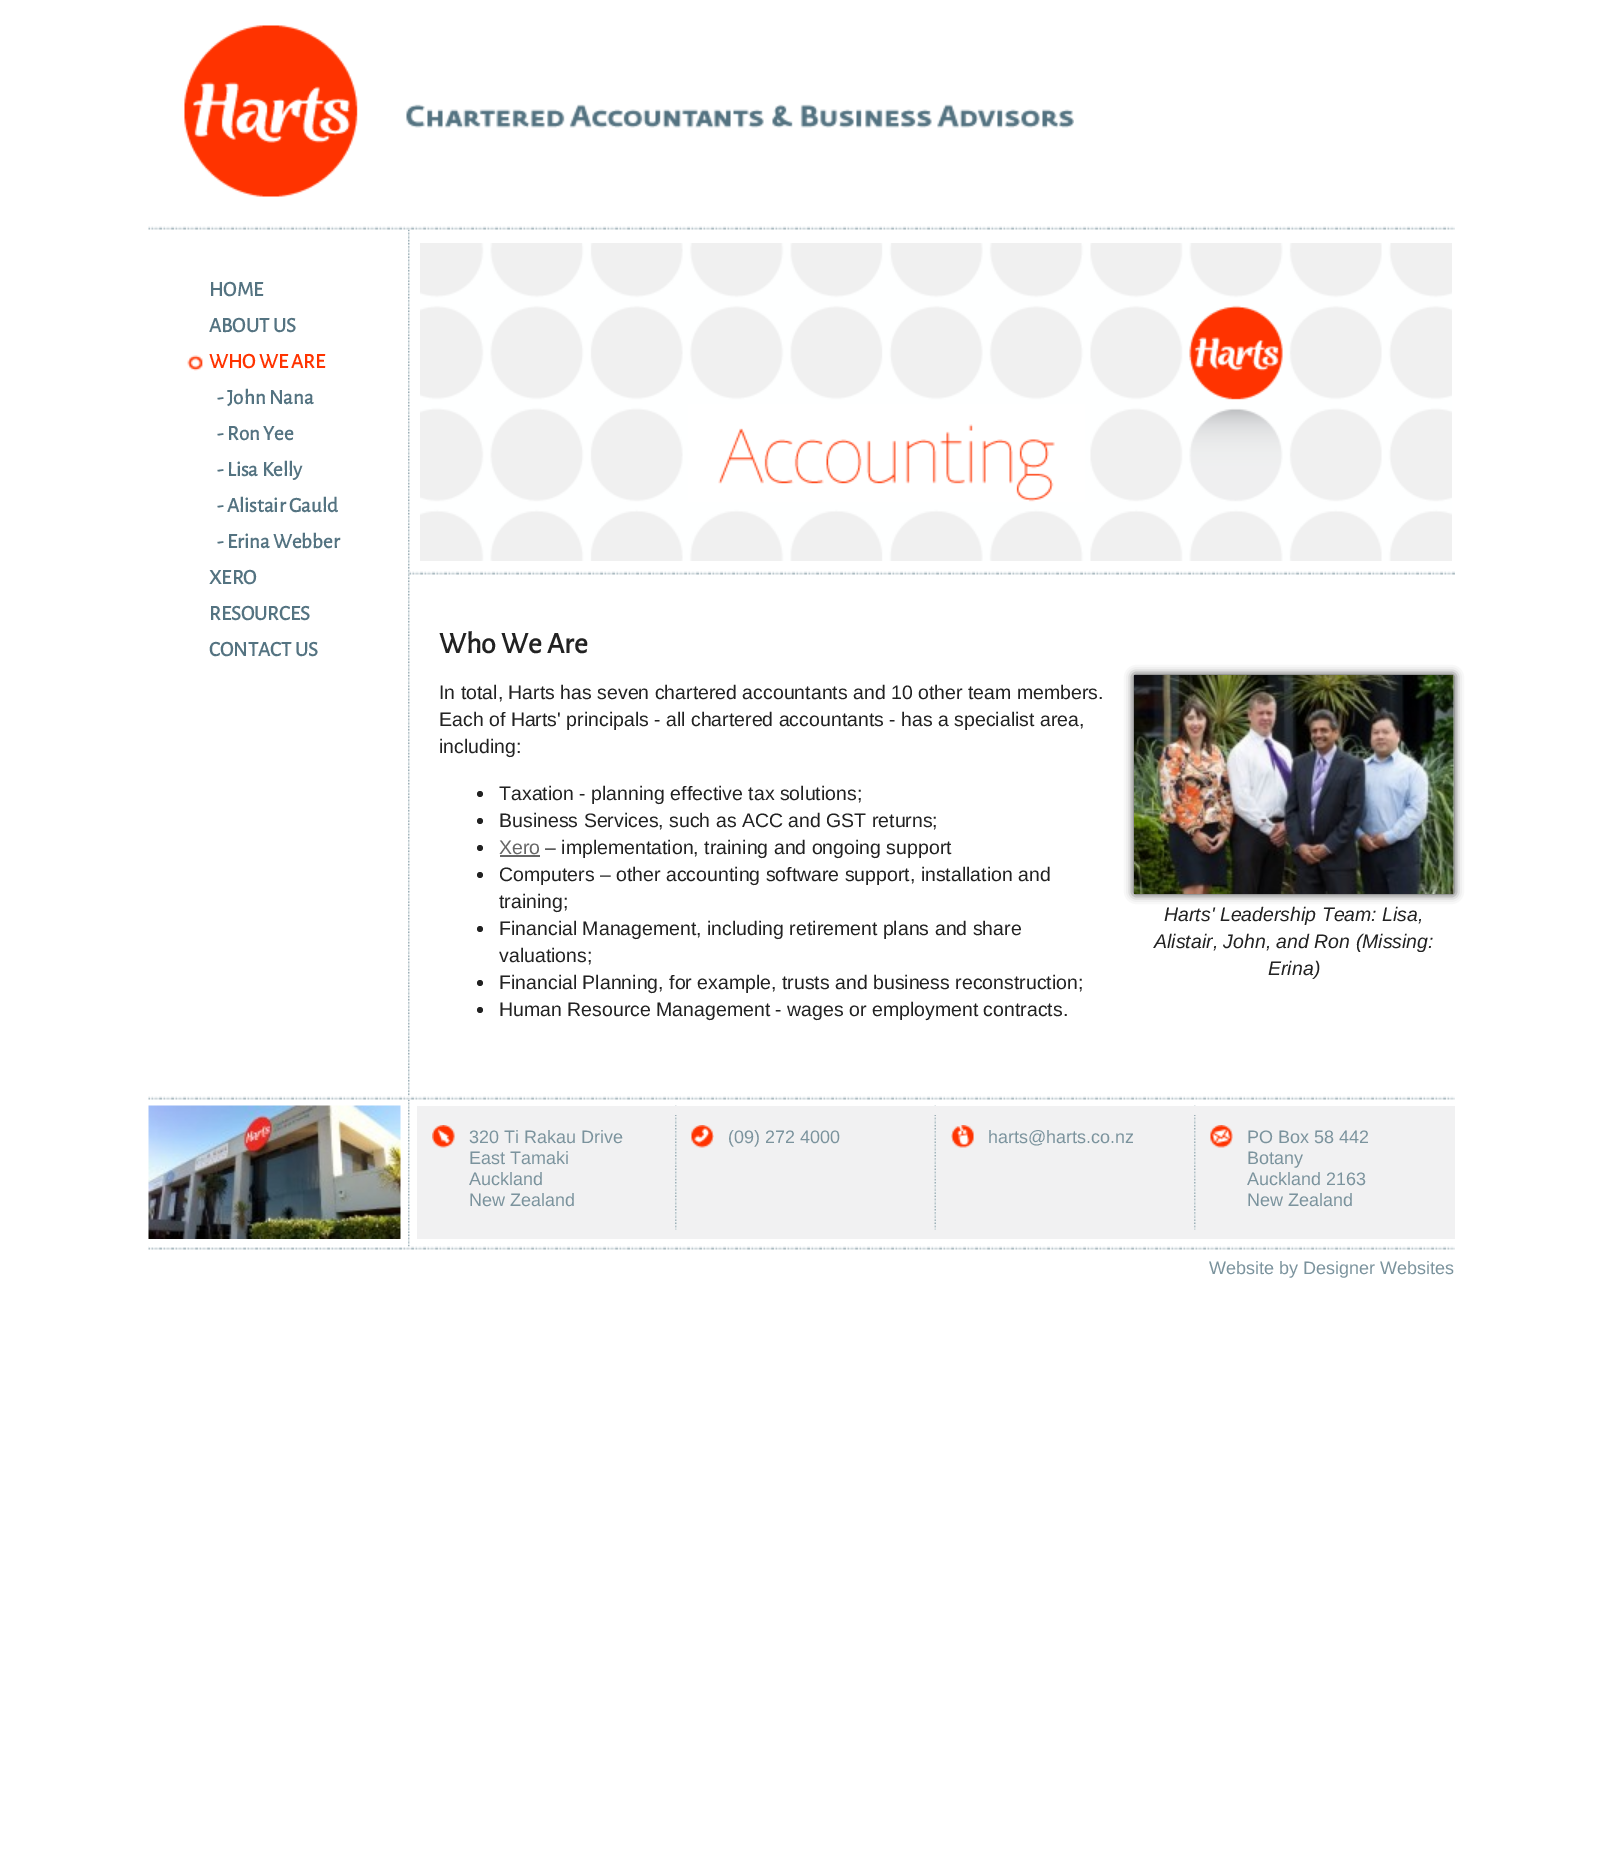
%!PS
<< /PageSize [1601 1862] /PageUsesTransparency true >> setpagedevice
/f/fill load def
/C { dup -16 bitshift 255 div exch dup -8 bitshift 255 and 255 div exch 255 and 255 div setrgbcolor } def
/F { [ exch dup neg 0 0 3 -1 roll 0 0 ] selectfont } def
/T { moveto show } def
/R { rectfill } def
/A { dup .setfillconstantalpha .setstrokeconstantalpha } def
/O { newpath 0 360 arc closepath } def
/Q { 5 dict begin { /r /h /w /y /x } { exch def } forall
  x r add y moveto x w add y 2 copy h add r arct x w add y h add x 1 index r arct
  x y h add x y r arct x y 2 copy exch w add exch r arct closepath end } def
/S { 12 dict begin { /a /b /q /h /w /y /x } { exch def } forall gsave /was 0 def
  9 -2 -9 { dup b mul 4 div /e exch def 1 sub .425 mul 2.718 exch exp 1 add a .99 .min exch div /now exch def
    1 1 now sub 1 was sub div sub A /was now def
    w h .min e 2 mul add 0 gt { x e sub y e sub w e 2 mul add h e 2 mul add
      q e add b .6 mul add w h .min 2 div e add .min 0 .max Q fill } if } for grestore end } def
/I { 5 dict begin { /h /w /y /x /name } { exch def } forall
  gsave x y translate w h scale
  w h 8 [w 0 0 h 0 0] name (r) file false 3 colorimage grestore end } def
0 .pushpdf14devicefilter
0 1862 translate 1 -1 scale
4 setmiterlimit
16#FFFFFF C
0 0 1601 1862 R
(1.rgb) 148 226 1307 4 I
(2.rgb) 184 25 890 172 I
(3.rgb) 408 229 2 868 I
/AlegreyaSans-Bold 21 F
16#547381 C
(HOME) 209 296 T
(ABOUT US) 209 332 T
(4.rgb) 187 355 16 16 I
16#FF3300 C
(WHO WE ARE) 209 368 T
16#547381 C
(- John Nana) 217 404 T
(- Ron Yee) 217 440 T
(- Lisa Kelly) 217 476 T
(- Alistair Gauld) 217 512 T
(- Erina Webber) 217 548 T
(XERO) 209 584 T
(RESOURCES) 209 620 T
(CONTACT US) 209 656 T
(5.rgb) 409 571 1046 4 I
(6.rgb) 420 243 1032 318 I
/AlegreyaSans-Bold 30 F
16#222222 C
(Who We Are) 439 653 T
/LiberationSans-Regular 19.5 F
(In total, Harts has seven chartered accountants and 10 other team members.) 439 699 T
(Each of Harts' principals - all chartered accountants - has a specialist area,) 439 726 T
(including:) 439 753 T
480 794 3 O f
(Taxation - planning effective tax solutions;) 499 800 T
480 821 3 O f
(Business Services, such as ACC and GST returns;) 499 827 T
480 848 3 O f
16#666666 C
(Xero) 499 854 T
500 855 40 2 R
16#222222 C
(– implementation, training and ongoing support) 545 854 T
480 875 3 O f
(Computers – other accounting software support, installation and) 499 881 T
(training;) 499 908 T
480 929 3 O f
(Financial Management, including retirement plans and share) 499 935 T
(valuations;) 499 962 T
480 983 3 O f
(Financial Planning, for example, trusts and business reconstruction;) 499 989 T
480 1010 3 O f
(Human Resource Management - wages or employment contracts.) 499 1016 T
16#000000 C
1134 675 320 219 0 4.5 .8 S
(7.rgb) 1134 675 320 219 I
/LiberationSans-Italic 19.5 F
16#222222 C
(Harts' Leadership Team: Lisa,) 1164 921 T
(Alistair, John, and Ron \(Missing:) 1154 948 T
(Erina\)) 1268 975 T
(8.rgb) 148 1096 1307 4 I
(1.rgb) 148 1246 1307 4 I
16#FFFFFF C
149 1246 261 1 R
(9.rgb) 408 1099 2 148 I
(10.rgb) 148 1105 253 134 I
16#F1F1F2 C
417 1115 260 124 R
(11.rgb) 675 1105 2 125 I
417 1106 260 9 R
(12.rgb) 432 1125 23 23 I
/LiberationSans-Regular 18 F
16#7B939D C
(320 Ti Rakau Drive) 469 1143 T
(East Tamaki) 469 1164 T
(Auckland) 469 1185 T
(New Zealand) 469 1206 T
16#F1F1F2 C
677 1115 258 115 R
(13.rgb) 934 1105 2 125 I
677 1106 259 9 R
677 1230 259 9 R
(14.rgb) 691 1125 23 23 I
16#7B939D C
(\(09\) 272 4000) 728 1143 T
16#F1F1F2 C
936 1115 260 124 R
(15.rgb) 1194 1105 2 125 I
936 1106 260 9 R
(16.rgb) 951 1125 23 23 I
16#7B939D C
(harts@harts.co.nz) 988 1143 T
16#F1F1F2 C
1196 1106 259 133 R
(17.rgb) 1210 1125 23 23 I
16#7B939D C
(PO Box 58 442) 1247 1143 T
(Botany) 1247 1164 T
(Auckland 2163) 1247 1185 T
(New Zealand) 1247 1206 T
(Website by Designer Websites) 1209 1274 T
.poppdf14devicefilter showpage
